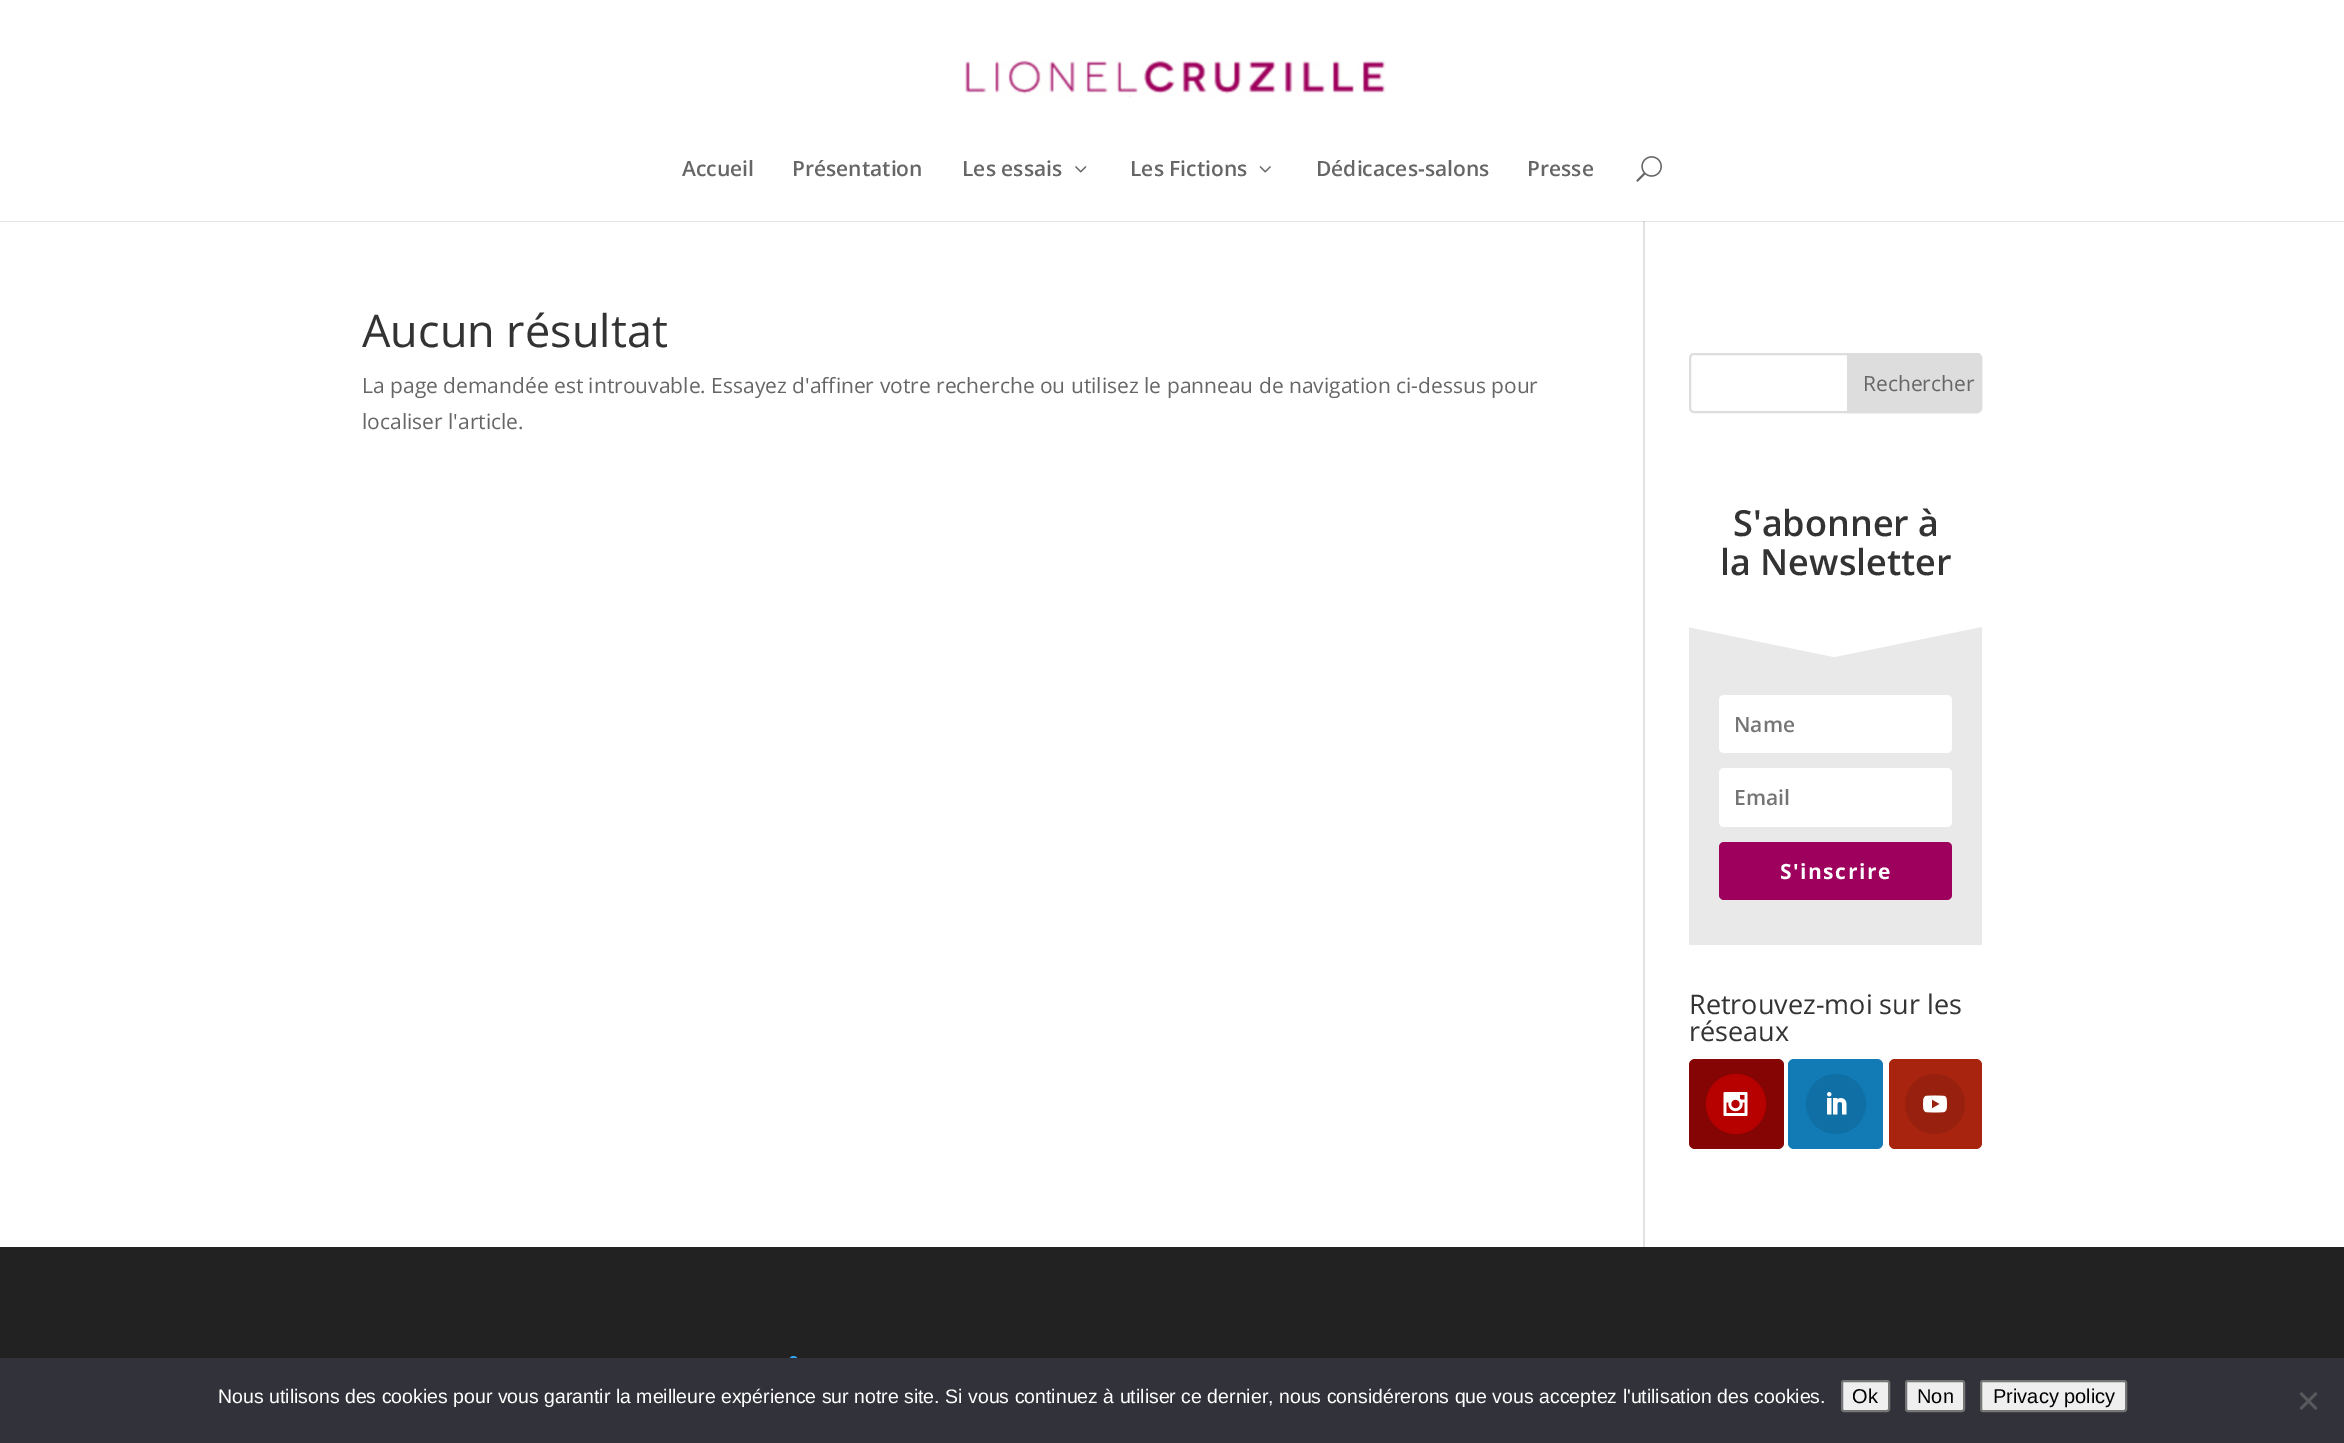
%!PS
<< /PageSize [2344 1443] /PageUsesTransparency true >> setpagedevice
/m/moveto load def
/l/rlineto load def
/c/rcurveto load def
/z/closepath load def
/f/fill load def
/s/stroke load def
/q/gsave load def
/Q_/grestore load def
/w/setlinewidth load def
/C { dup -16 bitshift 255 div exch dup -8 bitshift 255 and 255 div exch 255 and 255 div setrgbcolor } def
/F { [ exch dup neg 0 0 3 -1 roll 0 0 ] selectfont } def
/T { moveto show } def
/R { rectfill } def
/A { dup .setfillconstantalpha .setstrokeconstantalpha } def
/O { newpath 0 360 arc closepath } def
/Q { 5 dict begin { /r /h /w /y /x } { exch def } forall
  x r add y moveto x w add y 2 copy h add r arct x w add y h add x 1 index r arct
  x y h add x y r arct x y 2 copy exch w add exch r arct closepath end } def
/I { 5 dict begin { /h /w /y /x /name } { exch def } forall
  gsave x y translate w h scale
  w h 8 [w 0 0 h 0 0] name (r) file false 3 colorimage grestore end } def
0 .pushpdf14devicefilter
0 1443 translate 1 -1 scale
4 setmiterlimit
16#FFFFFF C
0 0 2344 1443 R
16#E2E2E2 C
1643 221 2 1026 R
0.1 A
16#000000 C
0 220 m 0 2 l 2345 0 l 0 -220 l -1 0 l 0 218 l z f
1 A
16#FFFFFF C
0 220 2344 1 R
(1.rgb) 965 60 421 38 I
/OpenSans-SemiBold 21 F
16#666666 C
(Accueil) 682 176 T
(Présentation) 792 176 T
(Les essais) 962 176 T
(2.rgb) 1075 166 12 7 I
(Les Fictions) 1130 176 T
(3.rgb) 1259 166 12 7 I
(Dédicaces-salons) 1316 176 T
(Presse) 1527 176 T
(4.rgb) 1636 156 26 26 I
/OpenSans-Regular 45 F
16#333333 C
(Aucun résultat) 362 347 T
/OpenSans-Regular 21 F
16#666666 C
(La page demandée est introuvable. Essayez d'affiner votre recherche ou utilisez le panneau de navigation ci-dessus pour) 362 393 T
(localiser l'article.) 362 429 T
16#DDDDDD C
2 w
1690 354 291 58 4 Q s
1848 354 m 129 0 l 2 0 4 2 4 4 c 0 50 l 0 2 -2 4 -4 4 c -129 0 l z q f Q_
s
16#666666 C
(Rechercher) 1863 391 T
/OpenSans-SemiBold 36 F
16#333333 C
(S'abonner à) 1733 536 T
(la Newsletter) 1720 575 T
16#E9E9E9 C
1689 627 293 318 R
16#FFFFFF C
1688 627 m 146 30 l 147 -30 l z f
1719 695 233 58 5 Q f
/OpenSans-SemiBold 21 F
16#757575 C
(Name) 1734 732 T
16#FFFFFF C
1719 768 233 59 5 Q f
16#757575 C
(Email) 1734 805 T
16#9E005D C
1719 842 233 58 5 Q f
/OpenSans-Bold 21 F
16#FFFFFF C
1780 879 m 1.5 0 (S'inscrire) ashow
/OpenSans-Regular 27 F
16#333333 C
(Retrouvez-moi sur les) 1689 1014 T
(réseaux) 1689 1041 T
16#840504 C
1689 1059 95 90 6 Q f
16#B70100 C
1736 1104 30 O f
(5.rgb) 1723 1092 25 24 I
16#127BB6 C
1788 1059 95 90 6 Q f
16#106FA4 C
1836 1104 30 O f
(6.rgb) 1827 1092 20 23 I
16#A8240F C
1889 1059 93 90 6 Q f
16#97200E C
1935 1104 30 O f
(7.rgb) 1923 1095 24 18 I
16#222222 C
0 1247 2344 111 R
16#2EA3F2 C
793.5 1360.5 4.5 O f
16#32323A C
0 1358 2344 85 R
/LiberationSans-Regular 19.5 F
16#FFFFFF C
(Nous utilisons des cookies pour vous garantir la meilleure expérience sur notre site. Si vous continuez à utiliser ce dernier, nous considérerons que vous acceptez l'utilisation des cookies.) 218 1403 T
16#EFEFEF C
1842 1381 47 30 2 Q q f Q_
16#767676 C
s
/LiberationSans-Regular 20 F
16#000000 C
(Ok) 1852 1403 T
16#EFEFEF C
1906 1381 58 30 2 Q q f Q_
16#767676 C
s
16#000000 C
(Non) 1917 1403 T
16#EFEFEF C
1981 1381 145 30 2 Q q f Q_
16#767676 C
s
16#000000 C
(Privacy policy) 1993 1403 T
16#59595D C
2315.5 1392 m 2 2 l -16 16 l -2 -2 l z f
2299.5 1394 m 2 -2 l 16 16 l -2 2 l z f
.poppdf14devicefilter showpage
